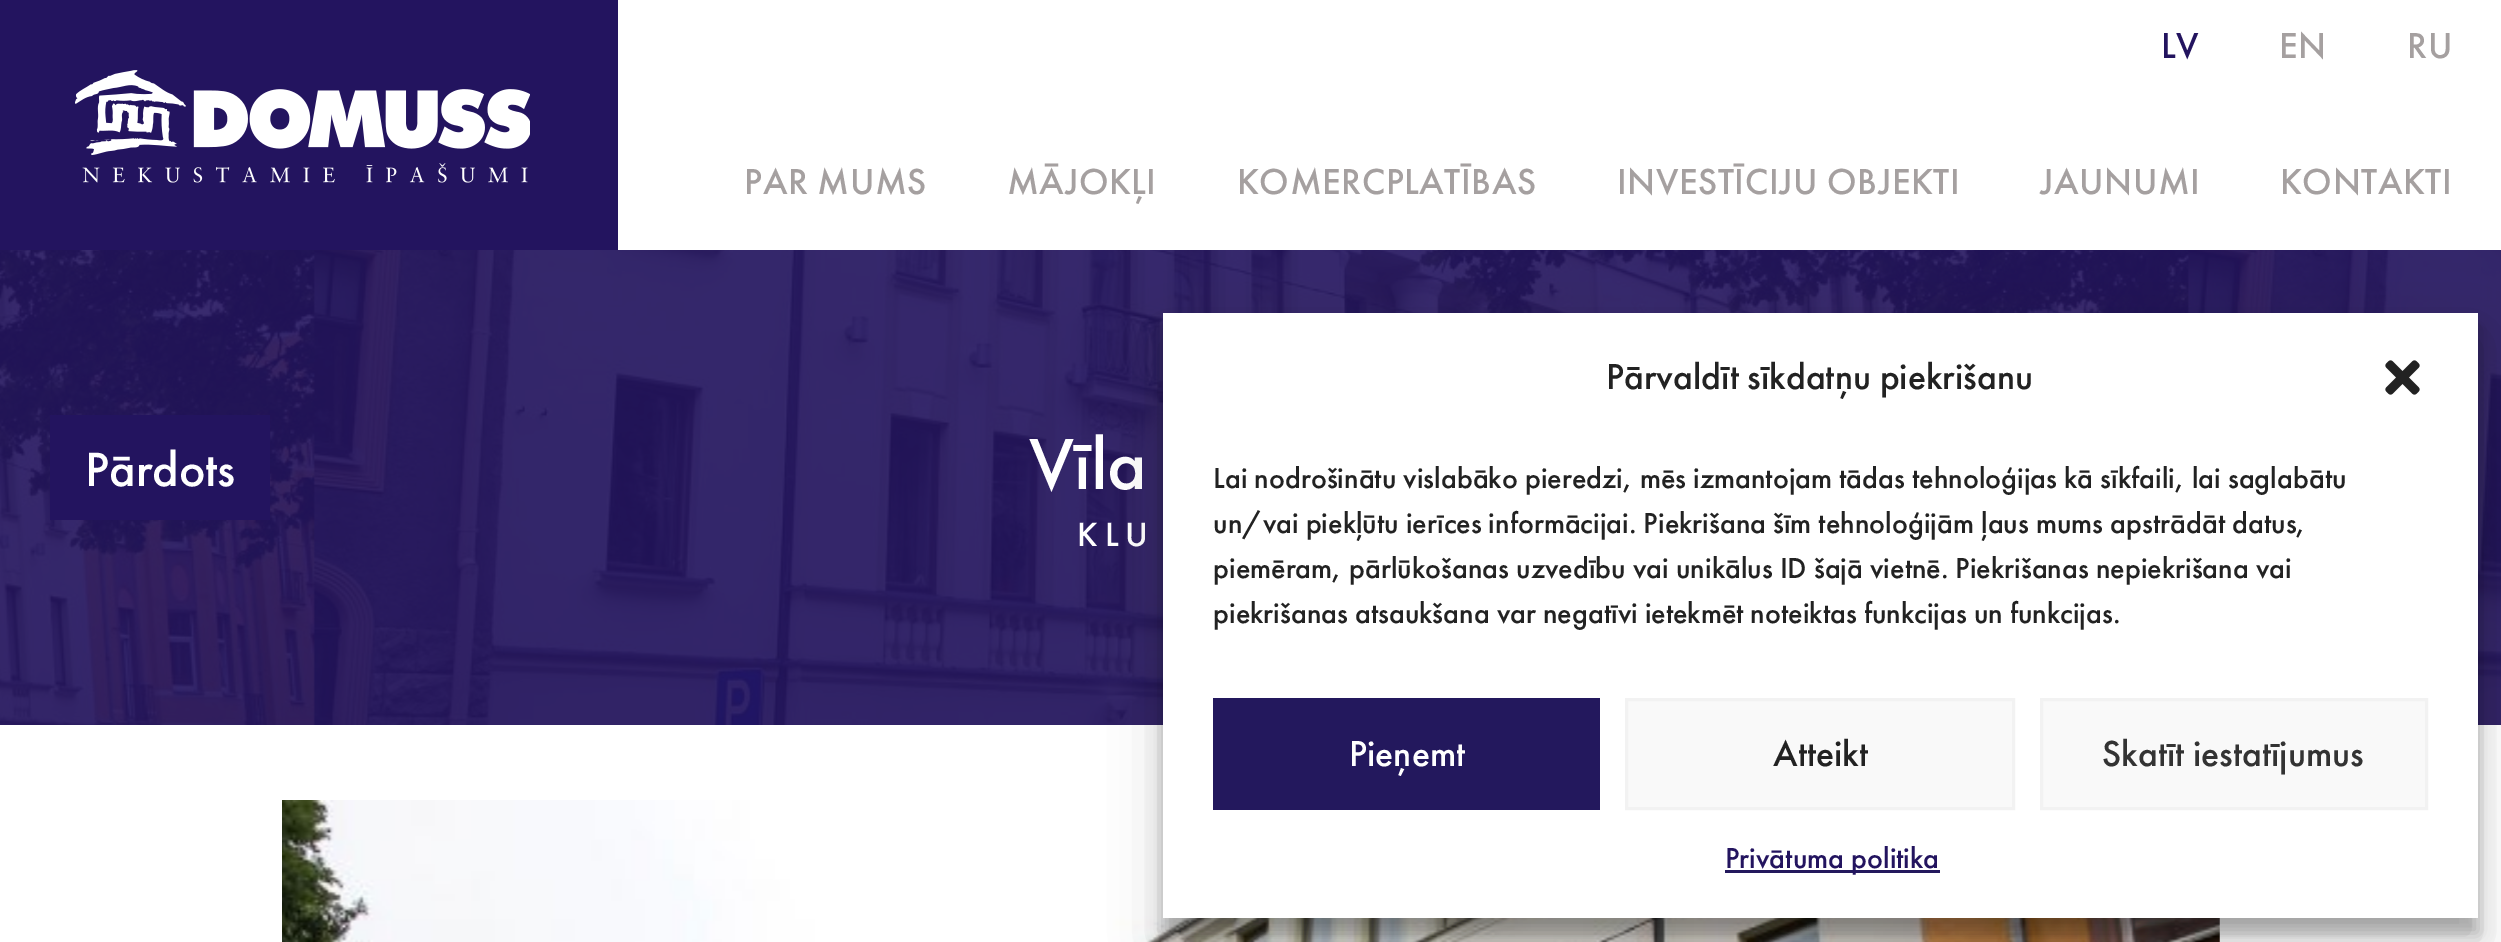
%!PS
<< /PageSize [2501 942] /PageUsesTransparency true >> setpagedevice
/m/moveto load def
/l/rlineto load def
/z/closepath load def
/f/fill load def
/s/stroke load def
/q/gsave load def
/Q_/grestore load def
/w/setlinewidth load def
/C { dup -16 bitshift 255 div exch dup -8 bitshift 255 and 255 div exch 255 and 255 div setrgbcolor } def
/F { [ exch dup neg 0 0 3 -1 roll 0 0 ] selectfont } def
/T { moveto show } def
/R { rectfill } def
/A { dup .setfillconstantalpha .setstrokeconstantalpha } def
/Q { 5 dict begin { /r /h /w /y /x } { exch def } forall
  x r add y moveto x w add y 2 copy h add r arct x w add y h add x 1 index r arct
  x y h add x y r arct x y 2 copy exch w add exch r arct closepath end } def
/S { 12 dict begin { /a /b /q /h /w /y /x } { exch def } forall gsave /was 0 def
  9 -2 -9 { dup b mul 4 div /e exch def 1 sub .425 mul 2.718 exch exp 1 add a .99 .min exch div /now exch def
    1 1 now sub 1 was sub div sub A /was now def
    w h .min e 2 mul add 0 gt { x e sub y e sub w e 2 mul add h e 2 mul add
      q e add b .6 mul add w h .min 2 div e add .min 0 .max Q fill } if } for grestore end } def
/I { 5 dict begin { /h /w /y /x /name } { exch def } forall
  gsave x y translate w h scale
  w h 8 [w 0 0 h 0 0] name (r) file false 3 colorimage grestore end } def
0 .pushpdf14devicefilter
0 942 translate 1 -1 scale
4 setmiterlimit
16#FFFFFF C
0 0 2501 942 R
16#23145F C
0 0 618 250 R
(1.rgb) 75 70 455 113 I
/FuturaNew-Medium 37.5 F
2161 58 m .5 0 (LV) ashow
16#A5A0A0 C
2279 58 m .5 0 (EN) ashow
2407 58 m .5 0 (RU) ashow
744 194 m .5 0 (PAR MUMS) ashow
1007 194 m .5 0 (MĀJOKĻI) ashow
1237 194 m .5 0 (KOMERCPLATĪBAS) ashow
1617 194 m .5 0 (INVESTĪCIJU OBJEKTI) ashow
2040 194 m .5 0 (JAUNUMI) ashow
2280 194 m .5 0 (KONTAKTI) ashow
(2.rgb) 0 250 2501 475 I
16#23145F C
50 415 220 105 R
/FuturaNew-Medium 50 F
16#FFFFFF C
(Pārdots) 85 486 T
/FuturaNew-Medium 75 F
(Vīla) 1029 489 T
/FuturaNew-Medium 35 F
1077 546 m 7 0 (KLU) ashow
(3.rgb) 282 800 1938 142 I
16#000000 C
1163 328 1315 605 0 7.5 .23 S
1163 338 1315 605 0 25 .19 S
16#FFFFFF C
1163 313 1315 605 R
/FuturaNew-Medium 37.5 F
16#222222 C
(Pārvaldīt sīkdatņu piekrišanu) 1606 389 T
(4.rgb) 2385 360 35 35 I
/FuturaNew-Medium 30 F
(Lai nodrošinātu vislabāko pieredzi, mēs izmantojam tādas tehnoloģijas kā sīkfaili, lai saglabātu) 1213 488 T
(un/vai piekļūtu ierīces informācijai. Piekrišana šīm tehnoloģijām ļaus mums apstrādāt datus,) 1213 533 T
(piemēram, pārlūkošanas uzvedību vai unikālus ID šajā vietnē. Piekrišanas nepiekrišana vai) 1213 578 T
(piekrišanas atsaukšana var negatīvi ietekmēt noteiktas funkcijas un funkcijas.) 1213 623 T
16#23185D C
1213 698 387 112 R
/FuturaNew-Medium 37.5 F
16#FFFFFF C
(Pieņemt) 1349 766 T
16#F9F9F9 C
1626.5 699.5 m 387 0 l 0 109 l -387 0 l z q f Q_
16#F2F2F2 C
3 w
s
16#222222 C
(Atteikt) 1773 766 T
16#F9F9F9 C
2041.5 699.5 m 385 0 l 0 109 l -385 0 l z q f Q_
16#F2F2F2 C
s
16#333333 C
(Skatīt iestatījumus) 2102 766 T
16#23185D C
1725 870 215 3 R
/FuturaNew-Medium 30 F
16#23145F C
(Privātuma politika) 1725 868 T
.poppdf14devicefilter showpage
